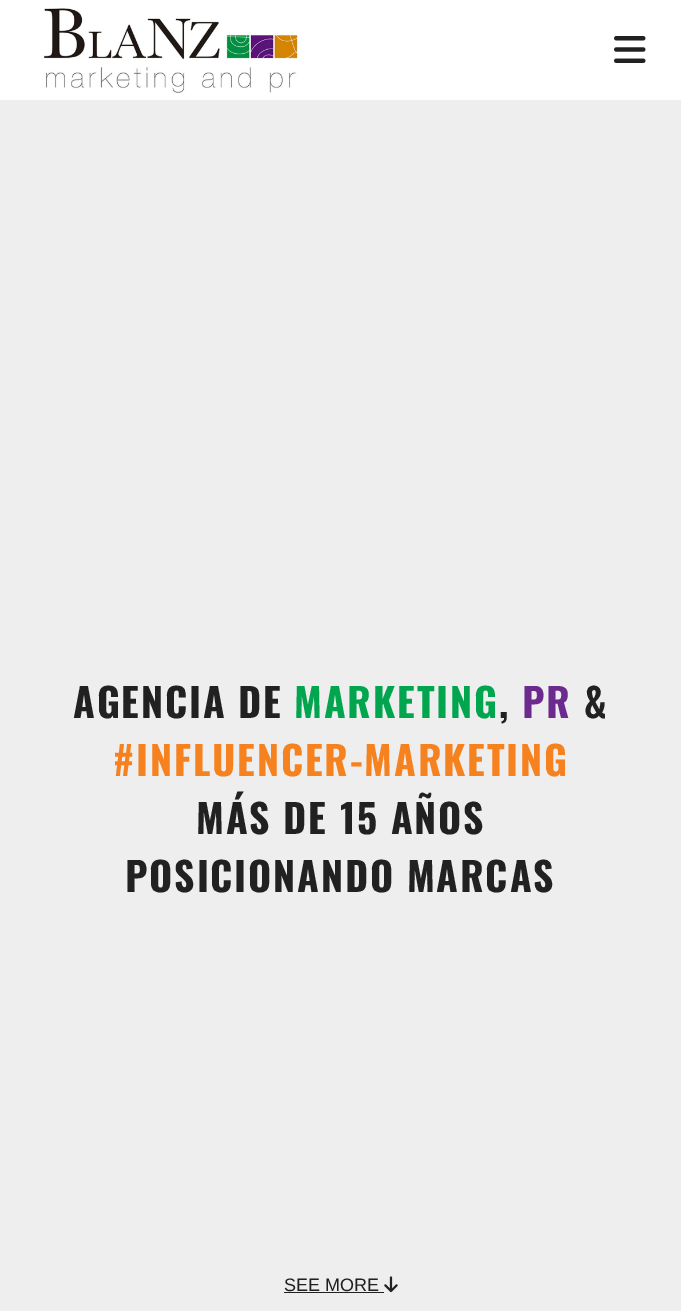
%!PS
<< /PageSize [681 1311] >> setpagedevice
/m/moveto load def
/C { dup -16 bitshift 255 div exch dup -8 bitshift 255 and 255 div exch 255 and 255 div setrgbcolor } def
/F { [ exch dup neg 0 0 3 -1 roll 0 0 ] selectfont } def
/T { moveto show } def
/R { rectfill } def
/I { 5 dict begin { /h /w /y /x /name } { exch def } forall
  gsave x y translate w h scale
  w h 8 [w 0 0 h 0 0] name (r) file false 3 colorimage grestore end } def
0 1311 translate 1 -1 scale
4 setmiterlimit
16#FFFFFF C
0 0 681 1311 R
(1.rgb) 43 8 255 85 I
(2.rgb) 614 36 32 27 I
16#EFEEEE C
0 100 681 1211 R
/Oswald-Bold 39.6 F
16#212121 C
73 718 m 1.8 0 (AGENCIA DE) ashow
16#00A54E C
294 718 m 1.8 0 (MARKETING) ashow
16#212121 C
499 718 m 1.8 0 (,) ashow
16#6C2A8E C
522 718 m 1.8 0 (PR) ashow
16#212121 C
584 718 m 1.8 0 (&) ashow
16#F6821F C
113 776 m 1.8 0 (#INFLUENCER-MARKETING) ashow
16#212121 C
196 834 m 1.8 0 (MÁS DE 15 AÑOS) ashow
125 892 m 1.8 0 (POSICIONANDO MARCAS) ashow
/LiberationSans-Regular 18 F
(SEE MORE) 284 1291 T
284 1292 100 1 R
(3.rgb) 384 1276 14 17 I
showpage
